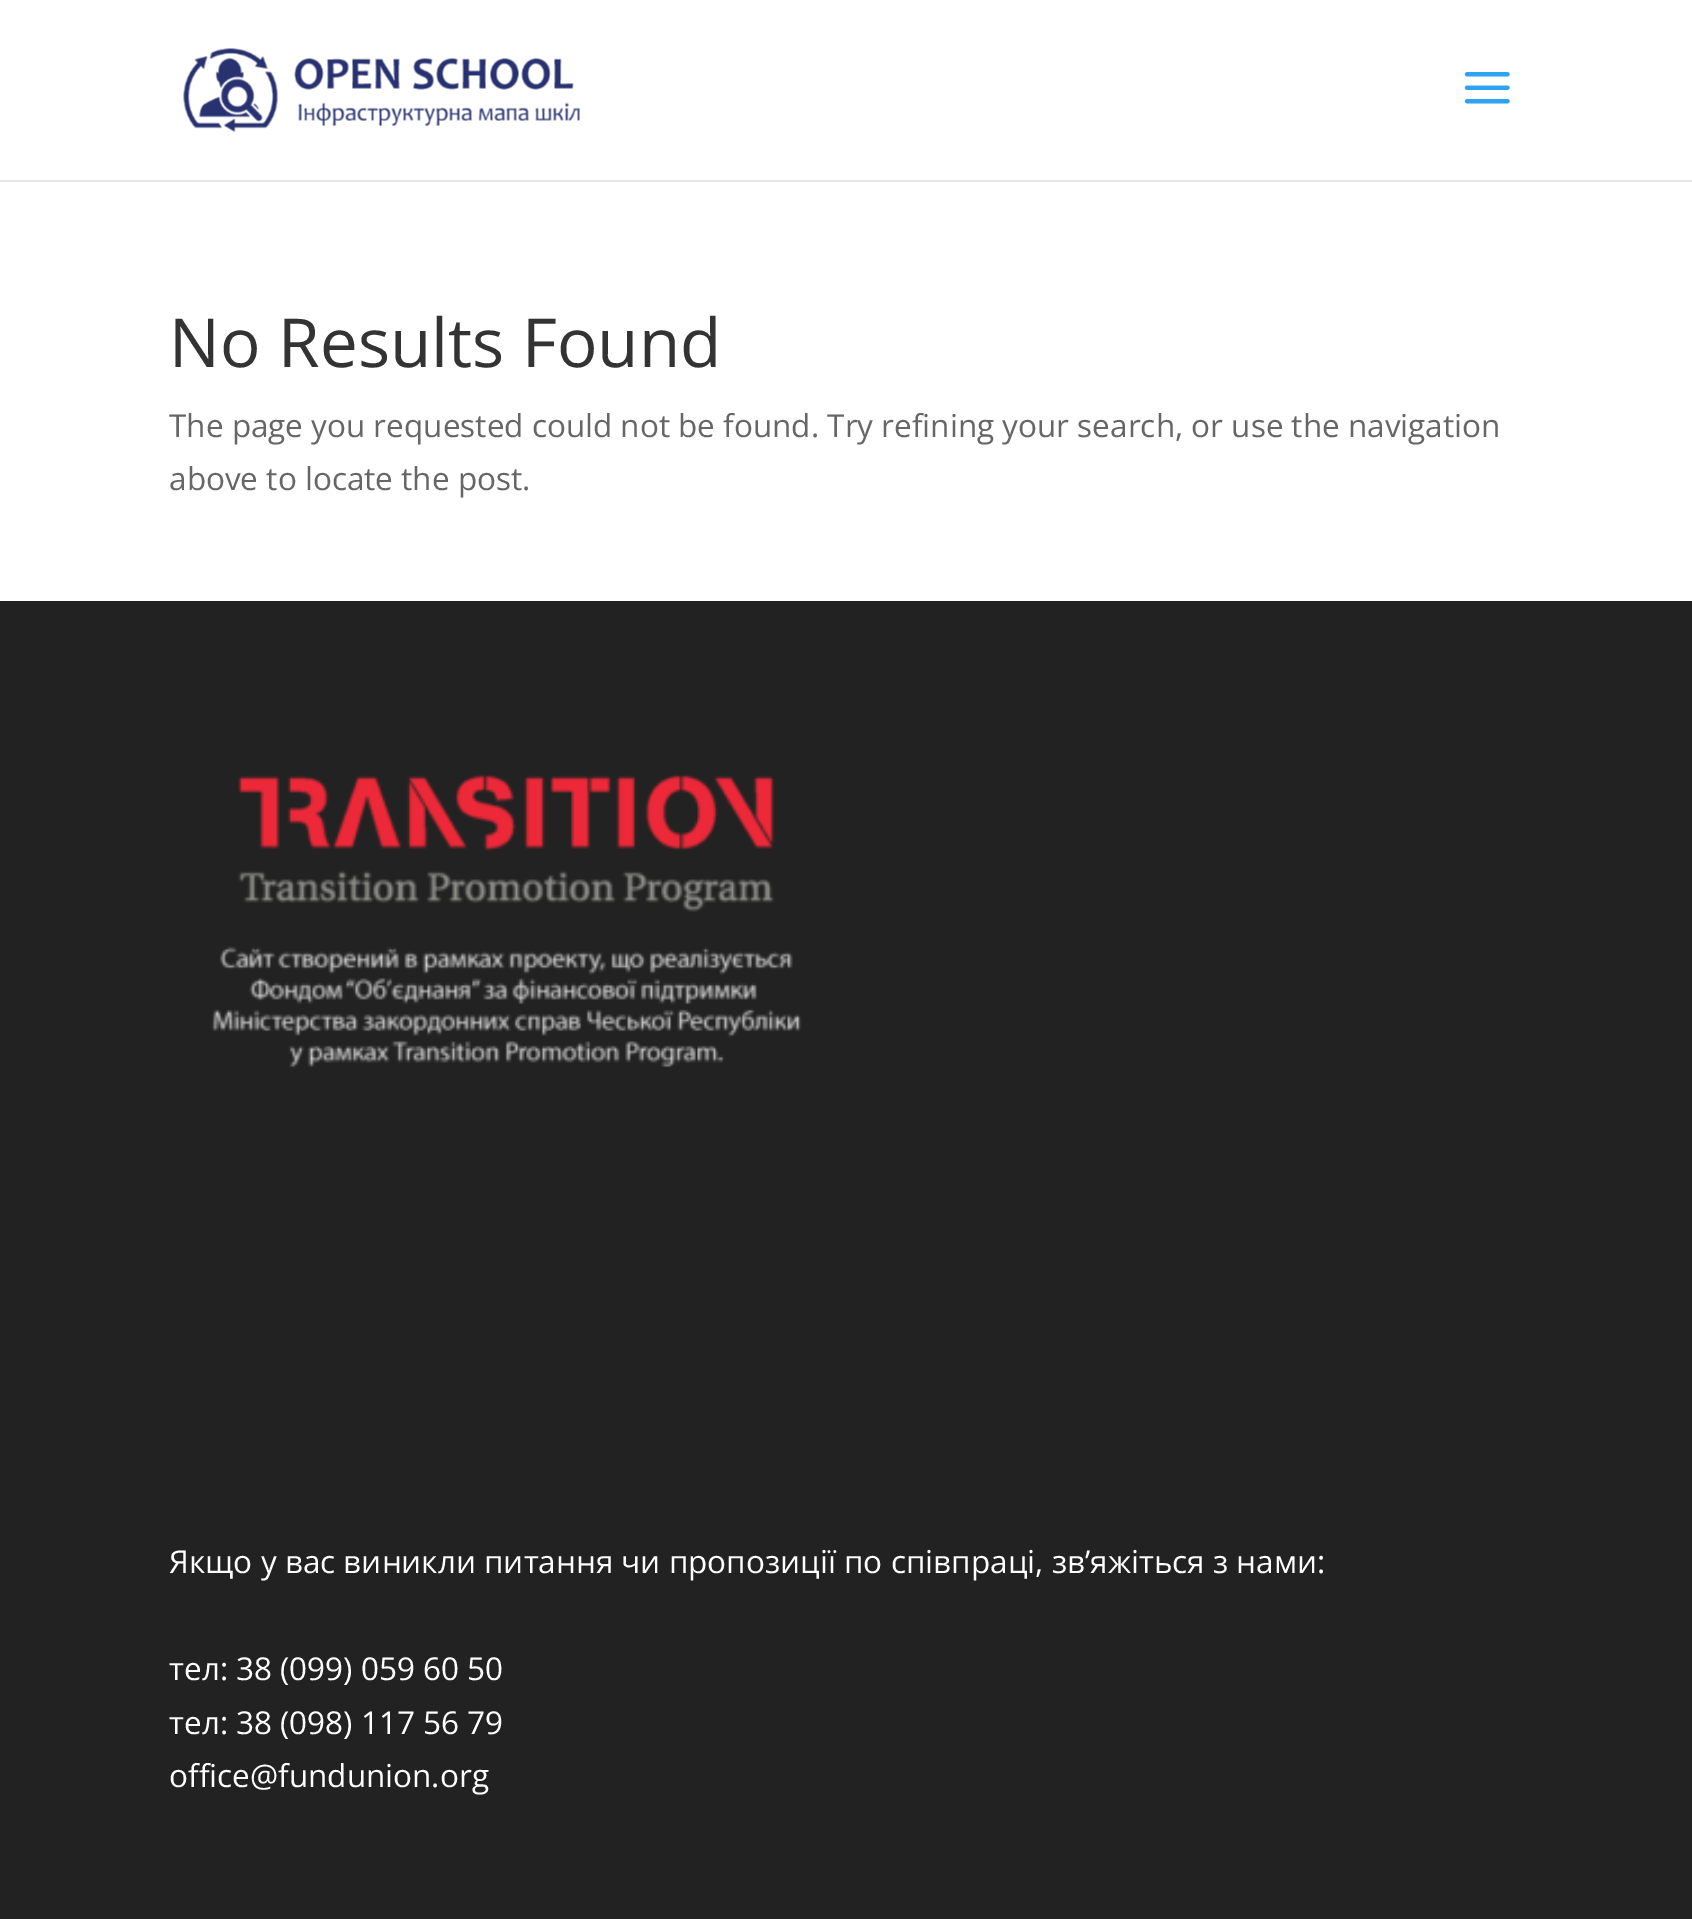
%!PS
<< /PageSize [1692 1919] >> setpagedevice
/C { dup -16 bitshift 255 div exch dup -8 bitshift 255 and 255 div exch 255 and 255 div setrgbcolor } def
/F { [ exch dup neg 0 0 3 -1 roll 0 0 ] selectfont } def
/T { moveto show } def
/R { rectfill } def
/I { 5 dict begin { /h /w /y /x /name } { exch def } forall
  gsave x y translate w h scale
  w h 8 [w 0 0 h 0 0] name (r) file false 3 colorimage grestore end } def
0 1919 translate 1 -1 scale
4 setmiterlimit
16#FFFFFF C
0 0 1692 1919 R
16#E6E6E6 C
0 180 1692 2 R
(1.rgb) 183 48 397 84 I
(2.rgb) 1464 72 46 32 I
/OpenSans-Regular 67.5 F
16#333333 C
(No Results Found) 169 367 T
/OpenSans-Regular 31.5 F
16#666666 C
(The page you requested could not be found. Try refining your search, or use the navigation) 169 437 T
(above to locate the post.) 169 490 T
16#222222 C
0 601 1692 1318 R
(3.rgb) 211 774 591 294 I
16#FFFFFF C
(Якщо у вас виникли питання чи пропозиції по співпраці, зв’яжіться з нами:) 169 1573 T
(тел: 38 \(099\) 059 60 50) 169 1680 T
(тел: 38 \(098\) 117 56 79) 169 1734 T
(office@fundunion.org) 169 1787 T
showpage
